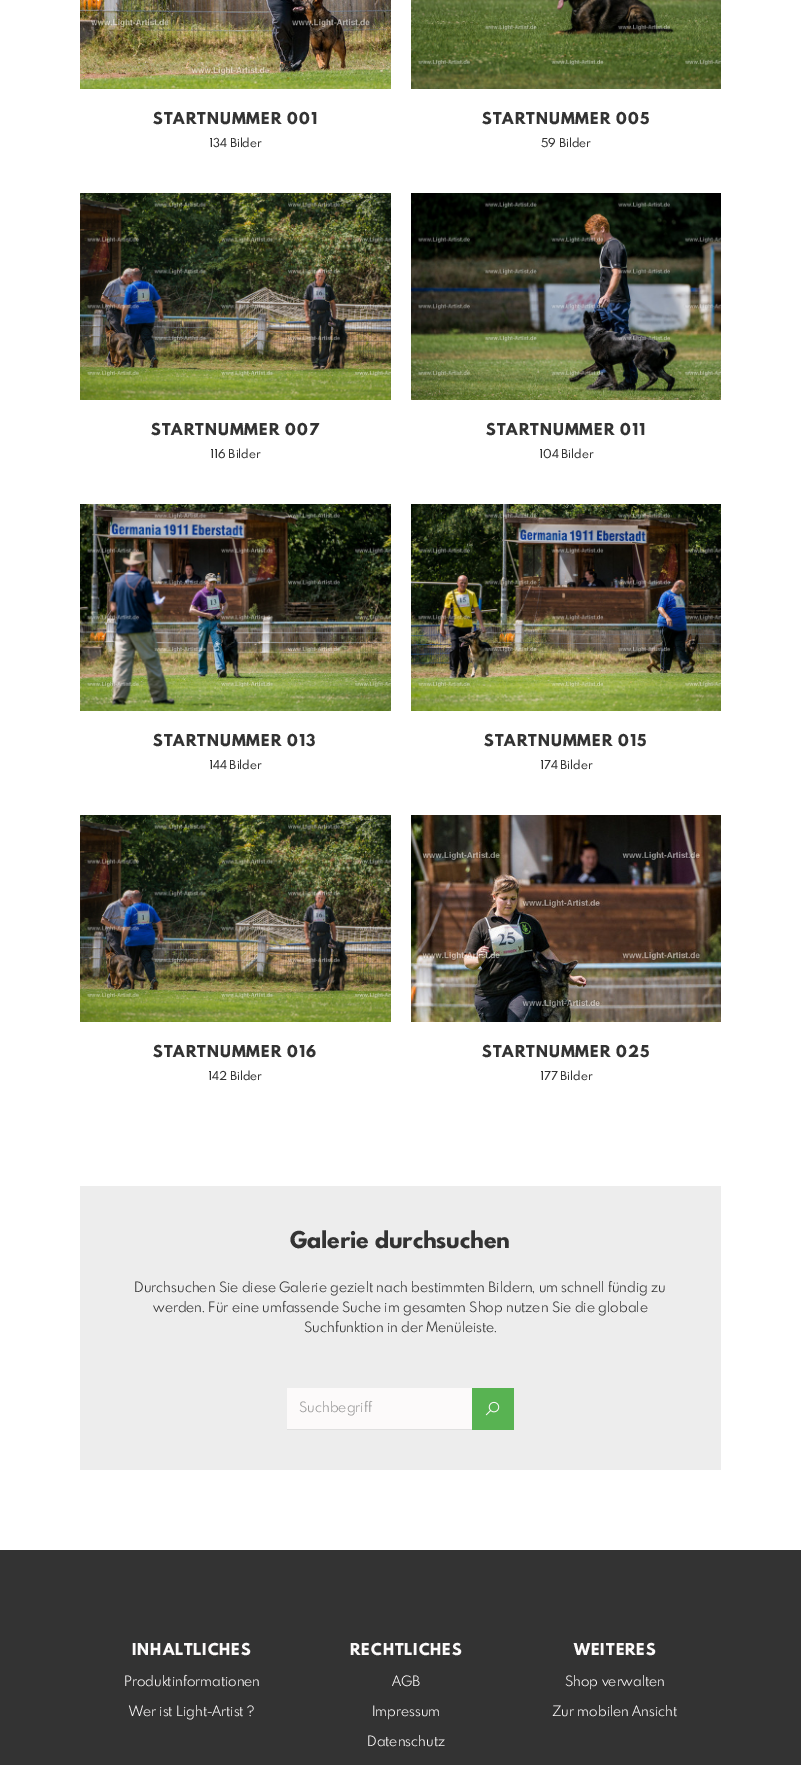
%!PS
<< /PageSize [801 1765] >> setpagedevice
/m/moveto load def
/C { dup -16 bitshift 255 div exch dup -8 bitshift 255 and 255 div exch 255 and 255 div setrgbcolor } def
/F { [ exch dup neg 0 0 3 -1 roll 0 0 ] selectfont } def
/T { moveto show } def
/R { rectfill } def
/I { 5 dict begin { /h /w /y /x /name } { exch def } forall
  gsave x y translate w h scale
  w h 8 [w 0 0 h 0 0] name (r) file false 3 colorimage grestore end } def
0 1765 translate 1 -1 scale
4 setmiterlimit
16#333333 C
0 0 801 1765 R
16#FFFFFF C
0 0 801 1550 R
(1.rgb) 80 0 311 89 I
/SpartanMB-ExtraBold 16 F
16#333333 C
153 124 m 1 0 (STARTNUMMER 001) ashow
/SpartanMB-Medium 12 F
(134 Bilder) 209 147 T
(2.rgb) 411 0 310 89 I
/SpartanMB-ExtraBold 16 F
482 124 m 1 0 (STARTNUMMER 005) ashow
/SpartanMB-Medium 12 F
(59 Bilder) 541 147 T
(3.rgb) 80 193 311 207 I
/SpartanMB-ExtraBold 16 F
151 435 m 1 0 (STARTNUMMER 007) ashow
/SpartanMB-Medium 12 F
(116 Bilder) 210 458 T
(4.rgb) 411 193 310 207 I
/SpartanMB-ExtraBold 16 F
486 435 m 1 0 (STARTNUMMER 011) ashow
/SpartanMB-Medium 12 F
(104 Bilder) 539 458 T
(5.rgb) 80 504 311 207 I
/SpartanMB-ExtraBold 16 F
153 746 m 1 0 (STARTNUMMER 013) ashow
/SpartanMB-Medium 12 F
(144 Bilder) 209 769 T
(6.rgb) 411 504 310 207 I
/SpartanMB-ExtraBold 16 F
484 746 m 1 0 (STARTNUMMER 015) ashow
/SpartanMB-Medium 12 F
(174 Bilder) 540 769 T
(7.rgb) 80 815 311 207 I
/SpartanMB-ExtraBold 16 F
153 1057 m 1 0 (STARTNUMMER 016) ashow
/SpartanMB-Medium 12 F
(142 Bilder) 208 1080 T
(8.rgb) 411 815 310 207 I
/SpartanMB-ExtraBold 16 F
482 1057 m 1 0 (STARTNUMMER 025) ashow
/SpartanMB-Medium 12 F
(177 Bilder) 540 1080 T
16#EDEDED C
80 1186 641 284 R
/SpartanMB-ExtraBold 22.75 F
16#333333 C
(Galerie durchsuchen) 290 1248 T
/SpartanMB-Regular 14 F
(Durchsuchen Sie diese Galerie gezielt nach bestimmten Bildern, um schnell fündig zu) 134 1292 T
(werden. Für eine umfassende Suche im gesamten Shop nutzen Sie die globale) 153 1312 T
(Suchfunktion in der Menüleiste.) 304 1332 T
16#FCFAFA C
287 1388 185 41 R
16#E0E0E0 C
287 1429 185 1 R
16#999999 C
(Suchbegriff) 299 1412 T
16#58B352 C
472 1388 42 42 R
(9.rgb) 485 1401 15 15 I
/SpartanMB-ExtraBold 16 F
16#FCFAFA C
132 1655 m 1 0 (INHALTLICHES) ashow
/SpartanMB-Regular 14 F
(Produktinformationen) 124 1686 T
(Wer ist Light-Artist ?) 129 1716 T
/SpartanMB-ExtraBold 16 F
350 1655 m 1 0 (RECHTLICHES) ashow
/SpartanMB-Regular 14 F
(AGB) 392 1686 T
(Impressum) 372 1716 T
(Datenschutz) 367 1746 T
/SpartanMB-ExtraBold 16 F
574 1655 m 1 0 (WEITERES) ashow
/SpartanMB-Regular 14 F
(Shop verwalten) 565 1686 T
(Zur mobilen Ansicht) 552 1716 T
showpage
